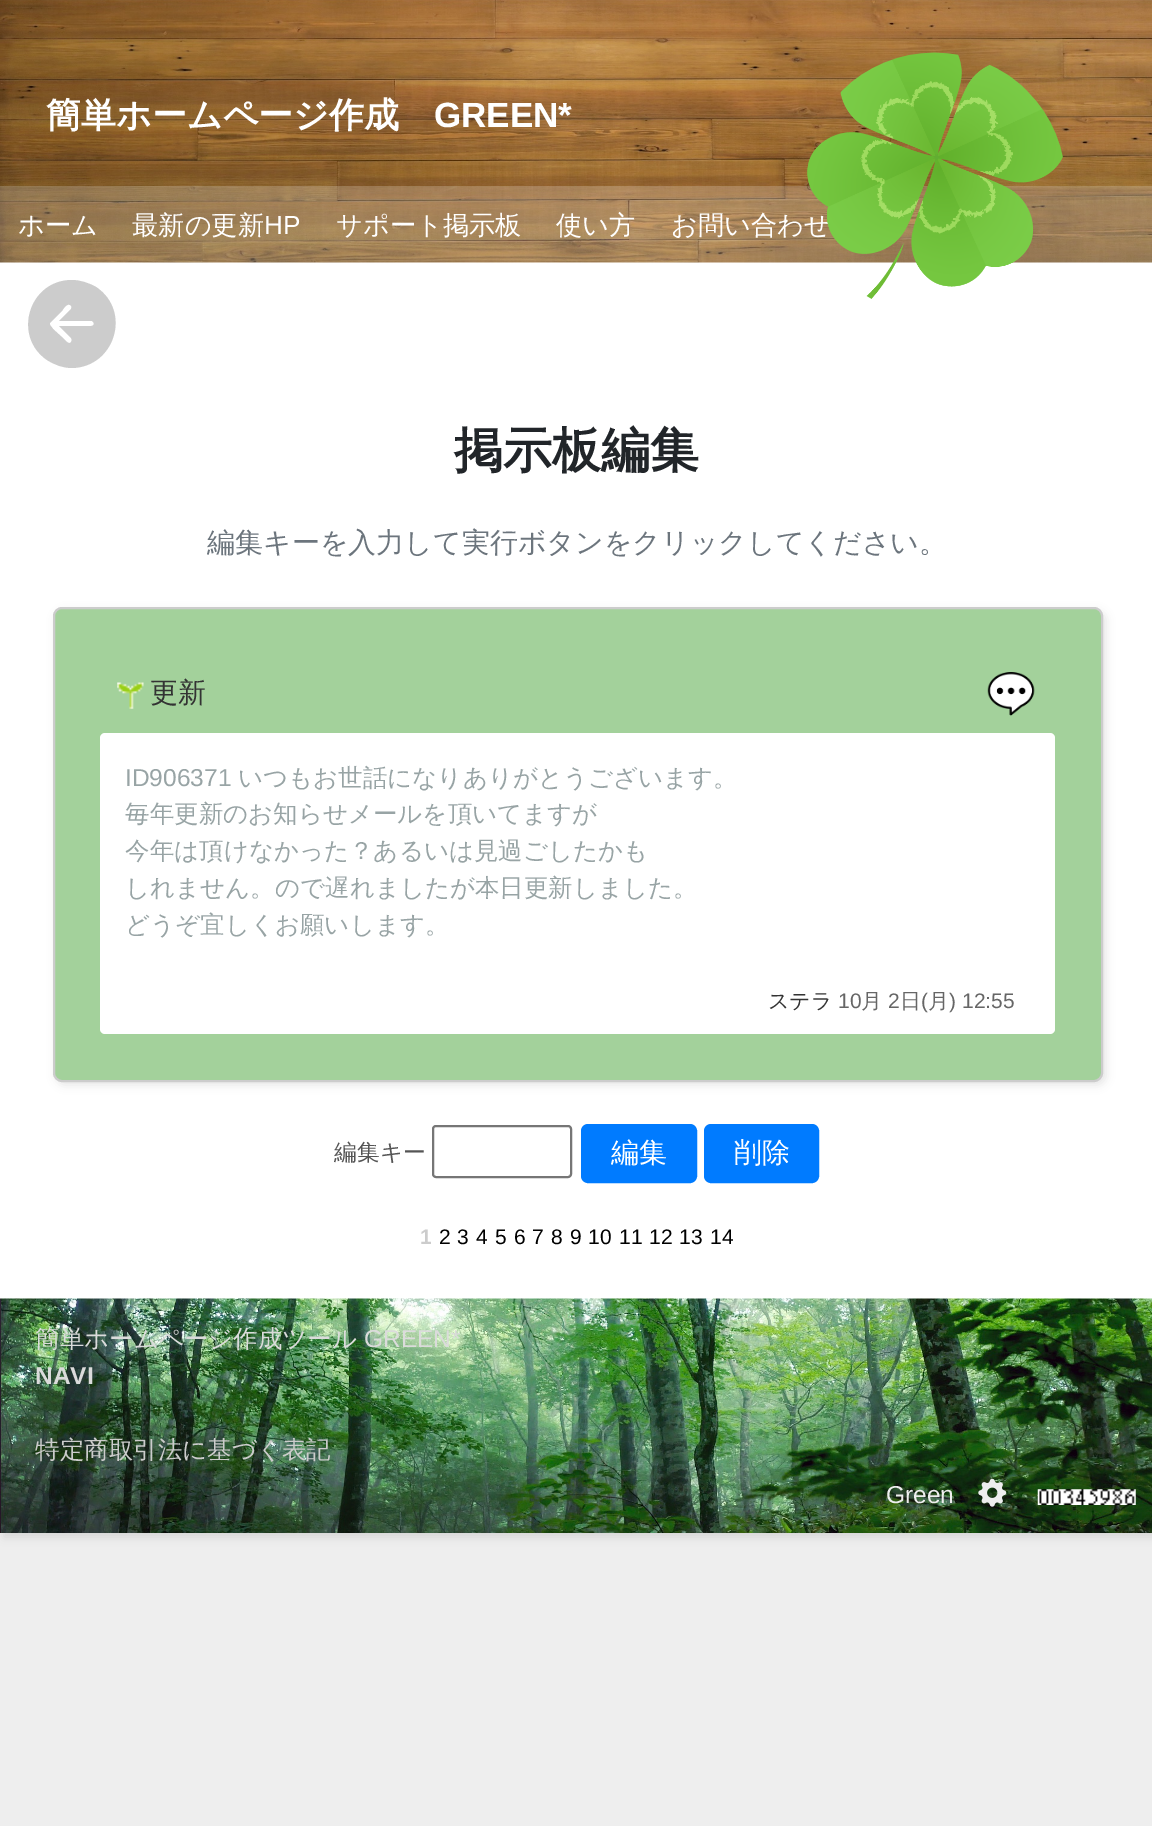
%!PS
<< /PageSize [1152 1826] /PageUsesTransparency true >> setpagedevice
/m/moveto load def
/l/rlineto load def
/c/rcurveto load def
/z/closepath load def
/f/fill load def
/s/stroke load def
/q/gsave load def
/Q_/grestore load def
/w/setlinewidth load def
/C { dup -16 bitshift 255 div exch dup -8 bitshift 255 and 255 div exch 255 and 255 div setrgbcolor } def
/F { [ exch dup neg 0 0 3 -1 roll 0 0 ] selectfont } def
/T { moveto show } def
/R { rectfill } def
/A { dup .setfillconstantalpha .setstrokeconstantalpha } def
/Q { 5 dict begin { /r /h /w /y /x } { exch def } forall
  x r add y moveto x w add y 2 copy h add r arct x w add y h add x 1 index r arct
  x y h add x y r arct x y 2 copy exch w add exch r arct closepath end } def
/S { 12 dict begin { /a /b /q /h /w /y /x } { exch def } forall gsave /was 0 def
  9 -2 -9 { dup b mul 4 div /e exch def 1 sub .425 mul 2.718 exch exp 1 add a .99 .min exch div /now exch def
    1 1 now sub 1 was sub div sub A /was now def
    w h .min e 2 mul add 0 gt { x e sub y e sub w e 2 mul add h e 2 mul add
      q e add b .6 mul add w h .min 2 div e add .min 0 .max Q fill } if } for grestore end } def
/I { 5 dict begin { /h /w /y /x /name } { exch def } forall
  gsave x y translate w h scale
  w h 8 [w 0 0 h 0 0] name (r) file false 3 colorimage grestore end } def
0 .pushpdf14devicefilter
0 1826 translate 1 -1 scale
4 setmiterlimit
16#EEEEEE C
0 0 1152 1826 R
16#000000 C
4 4 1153 1533 0 4.5 .1 S
16#FFFFFF C
0 262 1152 1037 R
(1.rgb) 0 0 1152 263 I
/WenQuanYiZenHei-Bold 35 F
(簡単ホームページ作成) 46 127 T
/LiberationSans-Bold 35 F
(GREEN*) 434 127 T
0.2 A
0 186 1152 77 R
/WenQuanYiZenHei-Medium 26.25 F
1 A
(ホーム) 18 234 T
(最新の更新) 132 234 T
/LiberationSans-Regular 26.25 F
(HP) 264 234 T
/WenQuanYiZenHei-Medium 26.25 F
(サポート掲示板) 336 234 T
(使い方) 556 234 T
(お問い合わせ) 671 234 T
(2.rgb) 807 52 256 247 I
16#CCCCCC C
72 280 m -43 0 -60 56 -25 80 c 8 5 16 8 25 8 c 43 -1 60 -57 24 -81 c -7 -4 -16 -7 -24 -7 c z 91 321 m 1 0 l 3 2 2 5 -1 5 c -32 0 l 12 12 l 1 1 1 3 0 4 c -2 3 -5 -1 -7 -3 c -11 -10 l -1 -2 -4 -4 -3 -6 c 12 -12 l 1 -2 5 -8 8 -6 c 1 0 2 2 1 4 c -12 12 l z f
/WenQuanYiZenHei-Bold 49 F
16#212529 C
(掲示板編集) 454 467 T
/WenQuanYiZenHei-Medium 28 F
16#6C757D C
(編集キーを入力して実行ボタンをクリックしてください。) 207 552 T
16#000000 C
56 611 1050 474 9 4.5 .1 S
16#A3D19B C
54 608 1048 473 8 Q q f Q_
16#CCCCCC C
2 w
s
(3.rgb) 117 682 27 27 I
16#333333 C
(更新) 150 702 T
(4.rgb) 987 672 48 44 I
16#FFFFFF C
100 733 955 301 5 Q f
/LiberationSans-Regular 24.5 F
16#98A4A5 C
(ID906371) 125 786 T
/WenQuanYiZenHei-Medium 24.5 F
(いつもお世話になりありがとうございます。) 238 786 T
(毎年更新のお知らせメールを頂いてますが) 125 822 T
(今年は頂けなかった？あるいは見過ごしたかも) 125 859 T
(しれません。ので遅れましたが本日更新しました。) 125 896 T
(どうぞ宜しくお願いします。) 125 933 T
/WenQuanYiZenHei-Medium 21 F
16#333333 C
(ステラ) 768 1008 T
/LiberationSans-Regular 21 F
16#666666 C
(10) 838 1008 T
/WenQuanYiZenHei-Medium 21 F
(月) 861 1008 T
/LiberationSans-Regular 21 F
(2) 888 1008 T
/WenQuanYiZenHei-Medium 21 F
(日) 900 1008 T
/LiberationSans-Regular 21 F
(\() 921 1008 T
/WenQuanYiZenHei-Medium 21 F
(月) 928 1008 T
/LiberationSans-Regular 21 F
(\) 12:55) 949 1008 T
/WenQuanYiZenHei-Medium 22.75 F
16#555555 C
(編集キー) 334 1160 T
16#767676 C
433 1126 138 51 3 Q s
16#007BFF C
582 1125 114 57 6 Q q f Q_
s
/WenQuanYiZenHei-Medium 28 F
16#FFFFFF C
(編集) 611 1162 T
16#007BFF C
705 1125 113 57 6 Q q f Q_
s
16#FFFFFF C
(削除) 734 1162 T
/LiberationSans-Bold 21 F
16#CCCCCC C
(1) 420 1244 T
/LiberationSans-Regular 21 F
16#000000 C
(2) 439 1244 T
(3) 457 1244 T
(4) 476 1244 T
(5) 495 1244 T
(6) 514 1244 T
(7) 532 1244 T
(8) 551 1244 T
(9) 570 1244 T
(10) 588 1244 T
(11) 619 1244 T
(12) 649 1244 T
(13) 679 1244 T
(14) 710 1244 T
(5.rgb) 0 1298 1152 235 I
/WenQuanYiZenHei-Medium 24.5 F
16#DBDBDB C
(簡単ホームページ作成ツール) 35 1347 T
/LiberationSans-Regular 24.5 F
(GREEN*) 364 1347 T
/LiberationSans-Bold 24.5 F
(NAVI) 35 1384 T
/WenQuanYiZenHei-Medium 24.5 F
16#CCCCCC C
(特定商取引法に基づく表記) 35 1458 T
/LiberationSans-Regular 24.5 F
16#EEEEEE C
(Green) 886 1503 T
(6.rgb) 978 1478 29 29 I
(7.rgb) 1037 1489 99 16 I
.poppdf14devicefilter showpage
